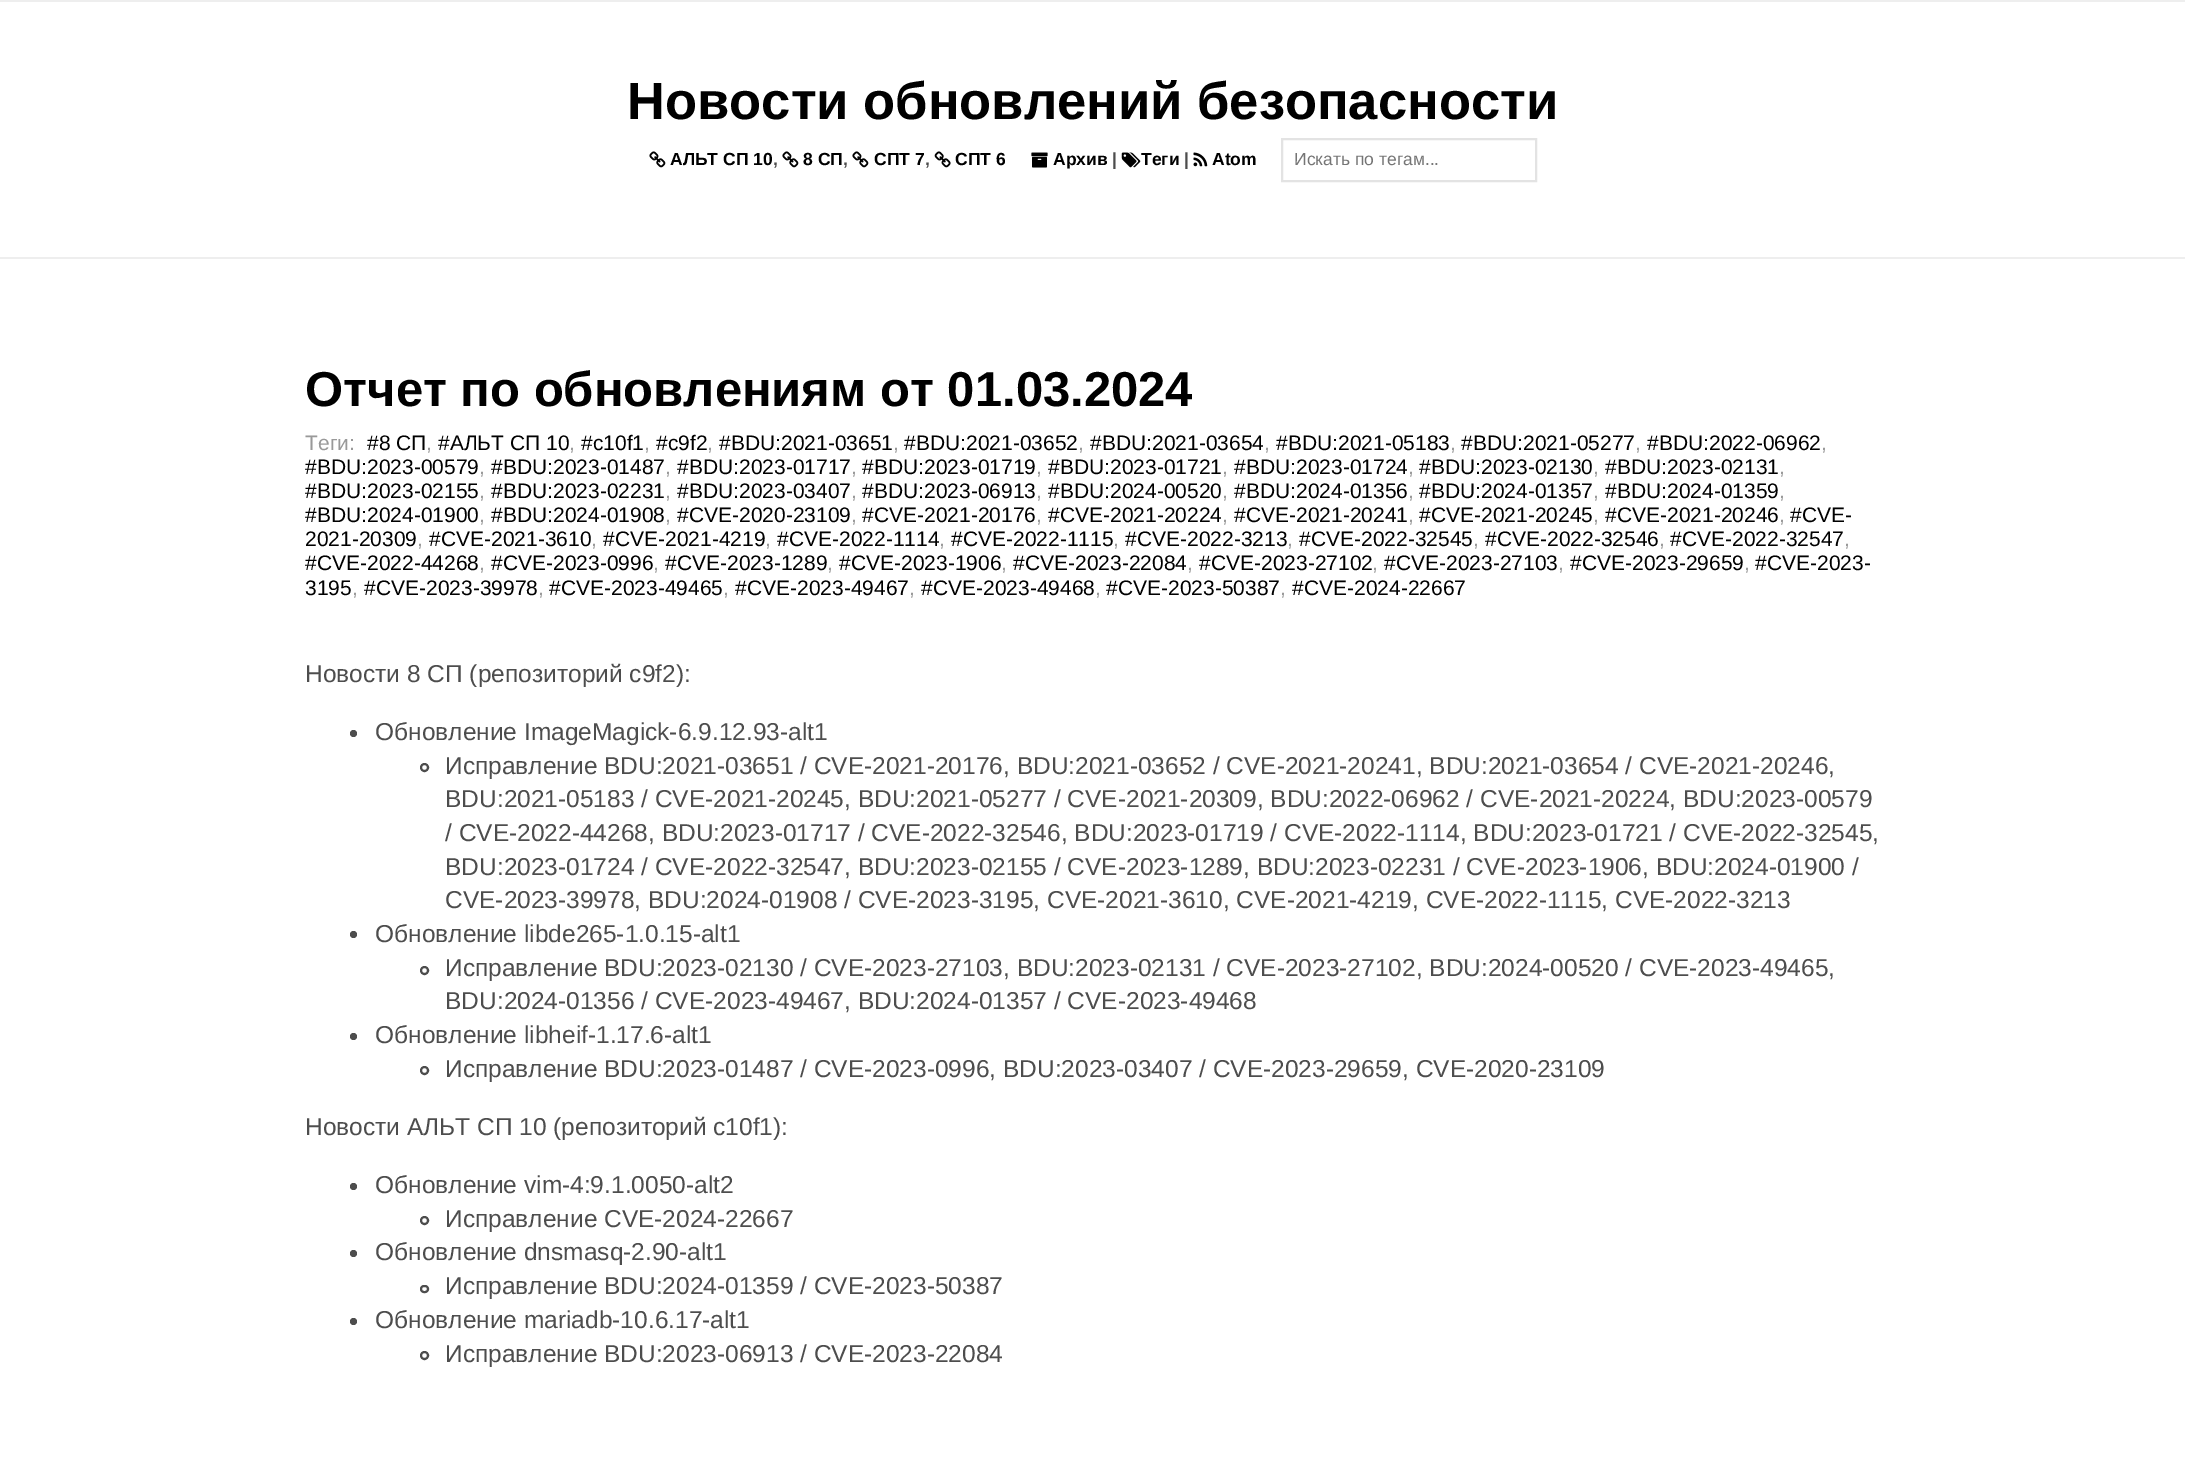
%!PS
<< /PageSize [2185 1468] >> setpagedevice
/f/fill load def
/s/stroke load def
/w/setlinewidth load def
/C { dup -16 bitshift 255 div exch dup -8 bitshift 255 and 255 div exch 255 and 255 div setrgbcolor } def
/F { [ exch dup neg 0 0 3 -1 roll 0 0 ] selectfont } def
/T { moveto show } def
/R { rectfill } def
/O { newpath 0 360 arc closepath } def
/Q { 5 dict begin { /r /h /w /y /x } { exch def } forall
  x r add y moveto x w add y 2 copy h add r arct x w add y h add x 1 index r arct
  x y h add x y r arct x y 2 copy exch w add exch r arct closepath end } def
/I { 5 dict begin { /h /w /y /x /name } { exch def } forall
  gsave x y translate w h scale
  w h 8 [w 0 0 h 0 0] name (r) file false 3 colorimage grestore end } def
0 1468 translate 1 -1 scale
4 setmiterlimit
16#FFFFFF C
0 0 2185 1468 R
16#EEEEEE C
0 0 2185 2 R
0 257 2185 2 R
/LiberationSans-Bold 52.5 F
16#000000 C
(Новости обновлений безопасности) 627 119 T
(1.rgb) 649 151 17 17 I
/LiberationSans-Bold 17.5 F
(АЛЬТ СП 10) 670 165 T
16#4D4D4D C
(,) 773 165 T
(1.rgb) 782 151 17 17 I
16#000000 C
(8 СП) 803 165 T
16#4D4D4D C
(,) 843 165 T
(1.rgb) 852 151 17 17 I
16#000000 C
(СПТ 7) 874 165 T
16#4D4D4D C
(,) 925 165 T
(2.rgb) 934 151 17 17 I
16#000000 C
(СПТ 6) 955 165 T
(3.rgb) 1031 152 17 16 I
(Архив) 1053 165 T
16#4D4D4D C
(|) 1112 165 T
(4.rgb) 1121 152 20 16 I
16#000000 C
(Теги) 1141 165 T
16#4D4D4D C
(|) 1184 165 T
(5.rgb) 1193 152 15 15 I
16#000000 C
(Atom) 1212 165 T
16#E3E3E3 C
2 w
1282 139 254 42 rectstroke
/LiberationSans-Regular 17.5 F
16#757575 C
(Искать по тегам...) 1294 165 T
/LiberationSans-Bold 49 F
16#000000 C
(Отчет по обновлениям от 01.03.2024) 305 406 T
/LiberationSans-Regular 21 F
16#999999 C
(Теги:) 305 450 T
16#000000 C
(#8 СП) 367 450 T
16#999999 C
(,) 426 450 T
16#000000 C
(#АЛЬТ СП 10) 438 450 T
16#999999 C
(,) 569 450 T
16#000000 C
(#c10f1) 581 450 T
16#999999 C
(,) 644 450 T
16#000000 C
(#c9f2) 656 450 T
16#999999 C
(,) 707 450 T
16#000000 C
(#BDU:2021-03651) 719 450 T
16#999999 C
(,) 893 450 T
16#000000 C
(#BDU:2021-03652) 904 450 T
16#999999 C
(,) 1078 450 T
16#000000 C
(#BDU:2021-03654) 1090 450 T
16#999999 C
(,) 1264 450 T
16#000000 C
(#BDU:2021-05183) 1276 450 T
16#999999 C
(,) 1450 450 T
16#000000 C
(#BDU:2021-05277) 1461 450 T
16#999999 C
(,) 1635 450 T
16#000000 C
(#BDU:2022-06962) 1647 450 T
16#999999 C
(,) 1821 450 T
16#000000 C
(#BDU:2023-00579) 305 474 T
16#999999 C
(,) 479 474 T
16#000000 C
(#BDU:2023-01487) 491 474 T
16#999999 C
(,) 665 474 T
16#000000 C
(#BDU:2023-01717) 677 474 T
16#999999 C
(,) 851 474 T
16#000000 C
(#BDU:2023-01719) 862 474 T
16#999999 C
(,) 1036 474 T
16#000000 C
(#BDU:2023-01721) 1048 474 T
16#999999 C
(,) 1222 474 T
16#000000 C
(#BDU:2023-01724) 1234 474 T
16#999999 C
(,) 1408 474 T
16#000000 C
(#BDU:2023-02130) 1419 474 T
16#999999 C
(,) 1593 474 T
16#000000 C
(#BDU:2023-02131) 1605 474 T
16#999999 C
(,) 1779 474 T
16#000000 C
(#BDU:2023-02155) 305 498 T
16#999999 C
(,) 479 498 T
16#000000 C
(#BDU:2023-02231) 491 498 T
16#999999 C
(,) 665 498 T
16#000000 C
(#BDU:2023-03407) 677 498 T
16#999999 C
(,) 851 498 T
16#000000 C
(#BDU:2023-06913) 862 498 T
16#999999 C
(,) 1036 498 T
16#000000 C
(#BDU:2024-00520) 1048 498 T
16#999999 C
(,) 1222 498 T
16#000000 C
(#BDU:2024-01356) 1234 498 T
16#999999 C
(,) 1408 498 T
16#000000 C
(#BDU:2024-01357) 1419 498 T
16#999999 C
(,) 1593 498 T
16#000000 C
(#BDU:2024-01359) 1605 498 T
16#999999 C
(,) 1779 498 T
16#000000 C
(#BDU:2024-01900) 305 522 T
16#999999 C
(,) 479 522 T
16#000000 C
(#BDU:2024-01908) 491 522 T
16#999999 C
(,) 665 522 T
16#000000 C
(#CVE-2020-23109) 677 522 T
16#999999 C
(,) 851 522 T
16#000000 C
(#CVE-2021-20176) 862 522 T
16#999999 C
(,) 1036 522 T
16#000000 C
(#CVE-2021-20224) 1048 522 T
16#999999 C
(,) 1222 522 T
16#000000 C
(#CVE-2021-20241) 1234 522 T
16#999999 C
(,) 1408 522 T
16#000000 C
(#CVE-2021-20245) 1419 522 T
16#999999 C
(,) 1593 522 T
16#000000 C
(#CVE-2021-20246) 1605 522 T
16#999999 C
(,) 1779 522 T
16#000000 C
(#CVE-) 1790 522 T
(2021-20309) 305 546 T
16#999999 C
(,) 417 546 T
16#000000 C
(#CVE-2021-3610) 429 546 T
16#999999 C
(,) 591 546 T
16#000000 C
(#CVE-2021-4219) 603 546 T
16#999999 C
(,) 765 546 T
16#000000 C
(#CVE-2022-1114) 777 546 T
16#999999 C
(,) 939 546 T
16#000000 C
(#CVE-2022-1115) 951 546 T
16#999999 C
(,) 1113 546 T
16#000000 C
(#CVE-2022-3213) 1125 546 T
16#999999 C
(,) 1287 546 T
16#000000 C
(#CVE-2022-32545) 1299 546 T
16#999999 C
(,) 1473 546 T
16#000000 C
(#CVE-2022-32546) 1485 546 T
16#999999 C
(,) 1659 546 T
16#000000 C
(#CVE-2022-32547) 1670 546 T
16#999999 C
(,) 1844 546 T
16#000000 C
(#CVE-2022-44268) 305 570 T
16#999999 C
(,) 479 570 T
16#000000 C
(#CVE-2023-0996) 491 570 T
16#999999 C
(,) 653 570 T
16#000000 C
(#CVE-2023-1289) 665 570 T
16#999999 C
(,) 827 570 T
16#000000 C
(#CVE-2023-1906) 839 570 T
16#999999 C
(,) 1001 570 T
16#000000 C
(#CVE-2023-22084) 1013 570 T
16#999999 C
(,) 1187 570 T
16#000000 C
(#CVE-2023-27102) 1199 570 T
16#999999 C
(,) 1372 570 T
16#000000 C
(#CVE-2023-27103) 1384 570 T
16#999999 C
(,) 1558 570 T
16#000000 C
(#CVE-2023-29659) 1570 570 T
16#999999 C
(,) 1744 570 T
16#000000 C
(#CVE-2023-) 1755 570 T
(3195) 305 595 T
16#999999 C
(,) 352 595 T
16#000000 C
(#CVE-2023-39978) 364 595 T
16#999999 C
(,) 538 595 T
16#000000 C
(#CVE-2023-49465) 549 595 T
16#999999 C
(,) 723 595 T
16#000000 C
(#CVE-2023-49467) 735 595 T
16#999999 C
(,) 909 595 T
16#000000 C
(#CVE-2023-49468) 921 595 T
16#999999 C
(,) 1095 595 T
16#000000 C
(#CVE-2023-50387) 1106 595 T
16#999999 C
(,) 1280 595 T
16#000000 C
(#CVE-2024-22667) 1292 595 T
/LiberationSans-Regular 24.5 F
16#4D4D4D C
(Новости 8 СП \(репозиторий c9f2\):) 305 682 T
353.5 733.5 3.5 O f
(Обновление ImageMagick-6.9.12.93-alt1) 375 740 T
424.5 767.5 3.5 O s
(Исправление BDU:2021-03651 / CVE-2021-20176, BDU:2021-03652 / CVE-2021-20241, BDU:2021-03654 / CVE-2021-20246,) 445 774 T
(BDU:2021-05183 / CVE-2021-20245, BDU:2021-05277 / CVE-2021-20309, BDU:2022-06962 / CVE-2021-20224, BDU:2023-00579) 445 807 T
(/ CVE-2022-44268, BDU:2023-01717 / CVE-2022-32546, BDU:2023-01719 / CVE-2022-1114, BDU:2023-01721 / CVE-2022-32545,) 445 841 T
(BDU:2023-01724 / CVE-2022-32547, BDU:2023-02155 / CVE-2023-1289, BDU:2023-02231 / CVE-2023-1906, BDU:2024-01900 /) 445 875 T
(CVE-2023-39978, BDU:2024-01908 / CVE-2023-3195, CVE-2021-3610, CVE-2021-4219, CVE-2022-1115, CVE-2022-3213) 445 908 T
353.5 934.5 3.5 O f
(Обновление libde265-1.0.15-alt1) 375 942 T
424.5 970.5 3.5 O s
(Исправление BDU:2023-02130 / CVE-2023-27103, BDU:2023-02131 / CVE-2023-27102, BDU:2024-00520 / CVE-2023-49465,) 445 976 T
(BDU:2024-01356 / CVE-2023-49467, BDU:2024-01357 / CVE-2023-49468) 445 1009 T
353.5 1036.5 3.5 O f
(Обновление libheif-1.17.6-alt1) 375 1043 T
424.5 1070.5 3.5 O s
(Исправление BDU:2023-01487 / CVE-2023-0996, BDU:2023-03407 / CVE-2023-29659, CVE-2020-23109) 445 1077 T
(Новости АЛЬТ СП 10 \(репозиторий c10f1\):) 305 1135 T
353.5 1186.5 3.5 O f
(Обновление vim-4:9.1.0050-alt2) 375 1193 T
424.5 1220.5 3.5 O s
(Исправление CVE-2024-22667) 445 1227 T
353.5 1253.5 3.5 O f
(Обновление dnsmasq-2.90-alt1) 375 1260 T
421 1286 7 6 3 Q s
(Исправление BDU:2024-01359 / CVE-2023-50387) 445 1294 T
353.5 1321.5 3.5 O f
(Обновление mariadb-10.6.17-alt1) 375 1328 T
424.5 1355.5 3.5 O s
(Исправление BDU:2023-06913 / CVE-2023-22084) 445 1362 T
showpage
